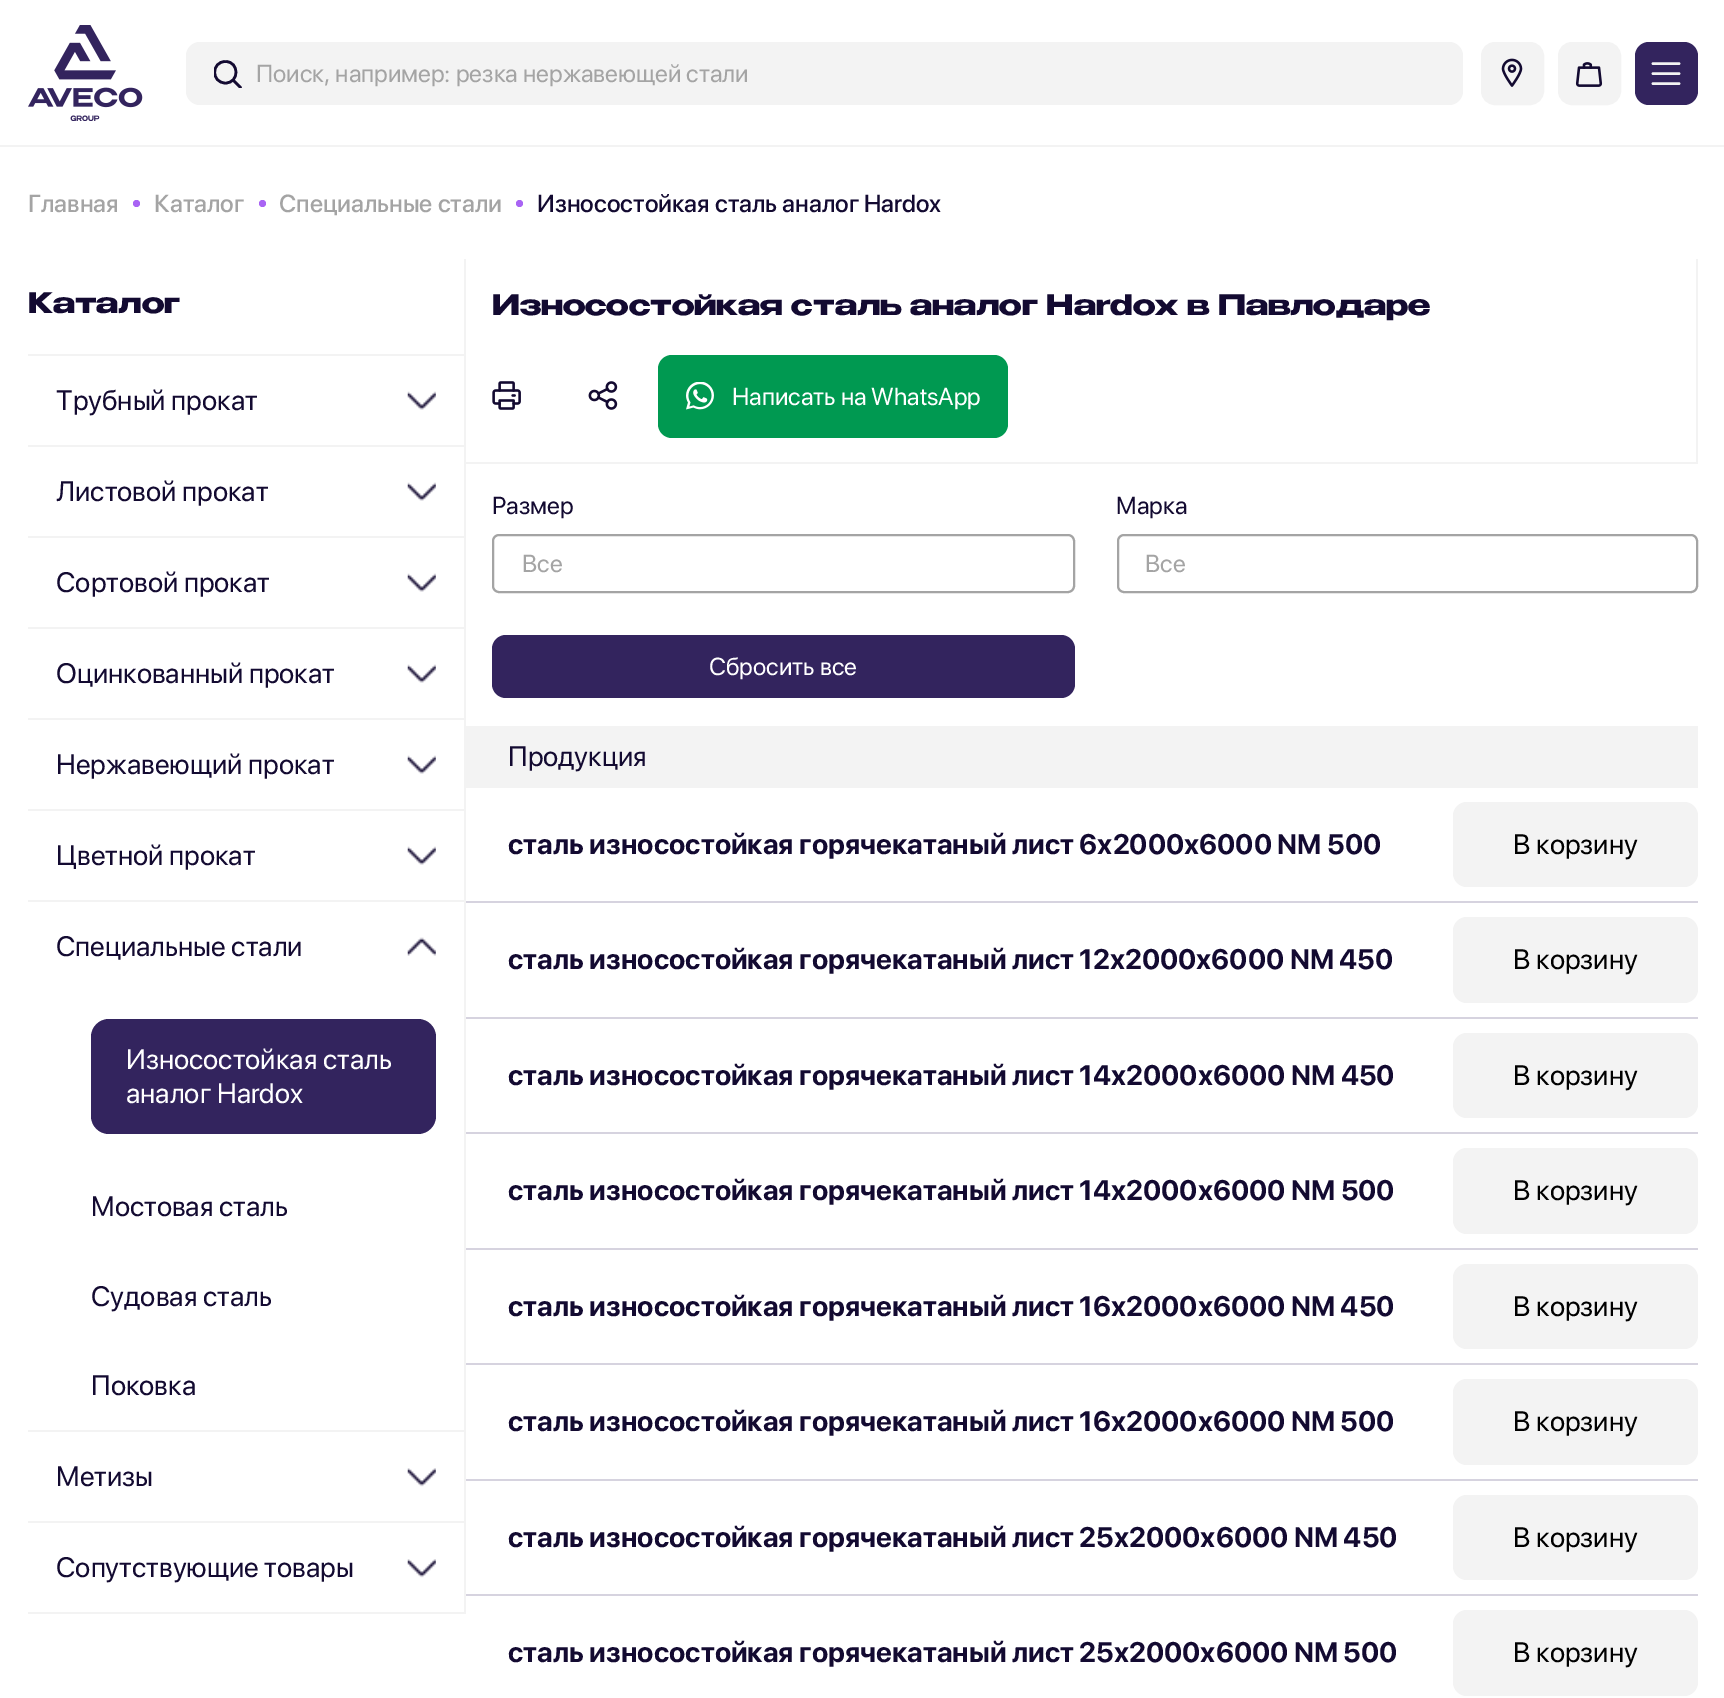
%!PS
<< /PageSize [1724 1698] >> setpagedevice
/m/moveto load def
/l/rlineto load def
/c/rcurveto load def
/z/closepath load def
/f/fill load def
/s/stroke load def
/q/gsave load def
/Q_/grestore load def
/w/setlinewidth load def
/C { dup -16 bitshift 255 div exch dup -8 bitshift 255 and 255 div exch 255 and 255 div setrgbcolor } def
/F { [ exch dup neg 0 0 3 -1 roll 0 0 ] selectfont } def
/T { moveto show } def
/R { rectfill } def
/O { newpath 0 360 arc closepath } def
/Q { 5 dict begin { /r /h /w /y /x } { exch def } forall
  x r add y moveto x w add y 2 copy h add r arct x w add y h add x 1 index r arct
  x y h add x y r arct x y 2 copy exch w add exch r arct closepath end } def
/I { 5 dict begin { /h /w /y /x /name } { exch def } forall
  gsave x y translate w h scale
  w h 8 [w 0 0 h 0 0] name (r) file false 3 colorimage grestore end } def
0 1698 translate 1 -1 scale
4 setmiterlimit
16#FFFFFF C
0 0 1724 1698 R
16#F3F3F3 C
0 145 1724 2 R
(1.rgb) 28 25 115 96 I
186 42 1277 63 14 Q f
q
214 60 28 28 rectclip
16#130A31 C
2.6 w
1 setlinecap
1 setlinejoin
225.5 83 m 14 0 14 -21.5 0 -21.5 c -14.5 0 -14.5 21.5 0 21.5 c z 240.5 87.5 m -7.5 -7.5 l s
Q_
/SFProDisplay-Regular 24.5 F
16#A4A4A4 C
(Поиск, например: резка нержавеющей стали) 256 82 T
16#F3F3F3 C
1482 43 61 61 13 Q q f Q_
2 w
s
(2.rgb) 1501 58 22 29 I
1559 43 61 61 13 Q q f Q_
s
(3.rgb) 1575 62 28 25 I
16#33245E C
1635 42 63 63 14 Q f
16#F3F3F3 C
2.6 w
1 setlinecap
1679 63.5 m -26 0 l 1679 73.5 m -26 0 l 1679 83.5 m -26 0 l s
/SFProDisplay-Medium 24.5 F
16#A4A4A4 C
(Главная) 28 212 T
16#A964F4 C
136.5 203.5 3.5 O f
16#A4A4A4 C
(Каталог) 154 212 T
16#A964F4 C
262.5 203.5 3.5 O f
16#A4A4A4 C
(Специальные стали) 279 212 T
16#A964F4 C
519.5 203.5 3.5 O f
16#130A31 C
(Износостойкая сталь аналог Hardox) 537 212 T
16#F3F3F3 C
464 259 2 96 R
28 354 438 2 R
/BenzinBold-Bold 28 F
16#130A31 C
(Каталог) 28 313 T
16#F3F3F3 C
464 355 2 1259 R
28 445 436 2 R
/SFProDisplay-Regular 28 F
16#130A31 C
(Трубный прокат) 56 410 T
(4.rgb) 407 391 29 19 I
16#F3F3F3 C
28 536 436 2 R
16#130A31 C
(Листовой прокат) 56 501 T
(4.rgb) 407 482 29 19 I
16#F3F3F3 C
28 627 436 2 R
16#130A31 C
(Сортовой прокат) 56 592 T
(4.rgb) 407 573 29 19 I
16#F3F3F3 C
28 718 436 2 R
16#130A31 C
(Оцинкованный прокат) 56 683 T
(4.rgb) 407 664 29 19 I
16#F3F3F3 C
28 809 436 2 R
16#130A31 C
(Нержавеющий прокат) 56 774 T
(4.rgb) 407 755 29 19 I
16#F3F3F3 C
28 900 436 2 R
16#130A31 C
(Цветной прокат) 56 865 T
(4.rgb) 407 846 29 19 I
16#F3F3F3 C
28 1430 436 2 R
16#130A31 C
(Специальные стали) 56 956 T
(5.rgb) 407 937 29 19 I
16#33245E C
91 1019 345 115 18 Q f
16#FFFFFF C
(Износостойкая сталь) 126 1069 T
(аналог Hardox) 126 1103 T
16#130A31 C
(Мостовая сталь) 91 1216 T
(Судовая сталь) 91 1306 T
(Поковка) 91 1395 T
16#F3F3F3 C
28 1521 436 2 R
16#130A31 C
(Метизы) 56 1486 T
(6.rgb) 407 1468 29 19 I
16#F3F3F3 C
28 1612 436 2 R
16#130A31 C
(Сопутствующие товары) 56 1577 T
(6.rgb) 407 1559 29 19 I
16#F3F3F3 C
1696 259 2 205 R
466 462 1232 2 R
/BenzinBold-Bold 28 F
16#130A31 C
(Износостойкая сталь аналог Hardox в Павлодаре) 492 315 T
(7.rgb) 492 381 29 29 I
(8.rgb) 588 381 30 29 I
16#009951 C
658 355 350 83 14 Q f
(9.rgb) 686 382 28 28 I
/SFProDisplay-Regular 24.5 F
16#FFFFFF C
(Написать на WhatsApp) 732 405 T
16#130A31 C
(Размер) 492 514 T
16#A4A4A4 C
2 w
0 setlinecap
493 535 581 57 6 Q s
(Все) 522 572 T
16#130A31 C
(Марка) 1116 514 T
16#A4A4A4 C
1118 535 579 57 6 Q s
(Все) 1145 572 T
16#33245E C
492 635 583 63 14 Q f
16#FFFFFF C
(Сбросить все) 709 675 T
16#F3F3F3 C
466 726 1232 62 R
/SFProDisplay-Regular 28 F
16#130A31 C
(Продукция) 508 766 T
16#D6D3DF C
466 901 1232 2 R
/SFProDisplay-Bold 28 F
16#130A31 C
(сталь износостойкая горячекатаный лист 6х2000х6000 NM 500) 508 854 T
16#F3F3F3 C
1453 802 245 85 14 Q f
/SFProDisplay-Regular 28 F
16#000000 C
(В корзину) 1513 854 T
16#D6D3DF C
466 1017 1232 2 R
/SFProDisplay-Bold 28 F
16#130A31 C
(сталь износостойкая горячекатаный лист 12х2000х6000 NM 450) 508 969 T
16#F3F3F3 C
1453 917 245 86 14 Q f
/SFProDisplay-Regular 28 F
16#000000 C
(В корзину) 1513 969 T
16#D6D3DF C
466 1132 1232 2 R
/SFProDisplay-Bold 28 F
16#130A31 C
(сталь износостойкая горячекатаный лист 14х2000х6000 NM 450) 508 1085 T
16#F3F3F3 C
1453 1033 245 85 14 Q f
/SFProDisplay-Regular 28 F
16#000000 C
(В корзину) 1513 1085 T
16#D6D3DF C
466 1248 1232 2 R
/SFProDisplay-Bold 28 F
16#130A31 C
(сталь износостойкая горячекатаный лист 14х2000х6000 NM 500) 508 1200 T
16#F3F3F3 C
1453 1148 245 86 14 Q f
/SFProDisplay-Regular 28 F
16#000000 C
(В корзину) 1513 1200 T
16#D6D3DF C
466 1363 1232 2 R
/SFProDisplay-Bold 28 F
16#130A31 C
(сталь износостойкая горячекатаный лист 16х2000х6000 NM 450) 508 1316 T
16#F3F3F3 C
1453 1264 245 85 14 Q f
/SFProDisplay-Regular 28 F
16#000000 C
(В корзину) 1513 1316 T
16#D6D3DF C
466 1479 1232 2 R
/SFProDisplay-Bold 28 F
16#130A31 C
(сталь износостойкая горячекатаный лист 16х2000х6000 NM 500) 508 1431 T
16#F3F3F3 C
1453 1379 245 86 14 Q f
/SFProDisplay-Regular 28 F
16#000000 C
(В корзину) 1513 1431 T
16#D6D3DF C
466 1594 1232 2 R
/SFProDisplay-Bold 28 F
16#130A31 C
(сталь износостойкая горячекатаный лист 25х2000х6000 NM 450) 508 1547 T
16#F3F3F3 C
1453 1495 245 85 14 Q f
/SFProDisplay-Regular 28 F
16#000000 C
(В корзину) 1513 1547 T
/SFProDisplay-Bold 28 F
16#130A31 C
(сталь износостойкая горячекатаный лист 25х2000х6000 NM 500) 508 1662 T
16#F3F3F3 C
1453 1610 245 86 14 Q f
/SFProDisplay-Regular 28 F
16#000000 C
(В корзину) 1513 1662 T
showpage
